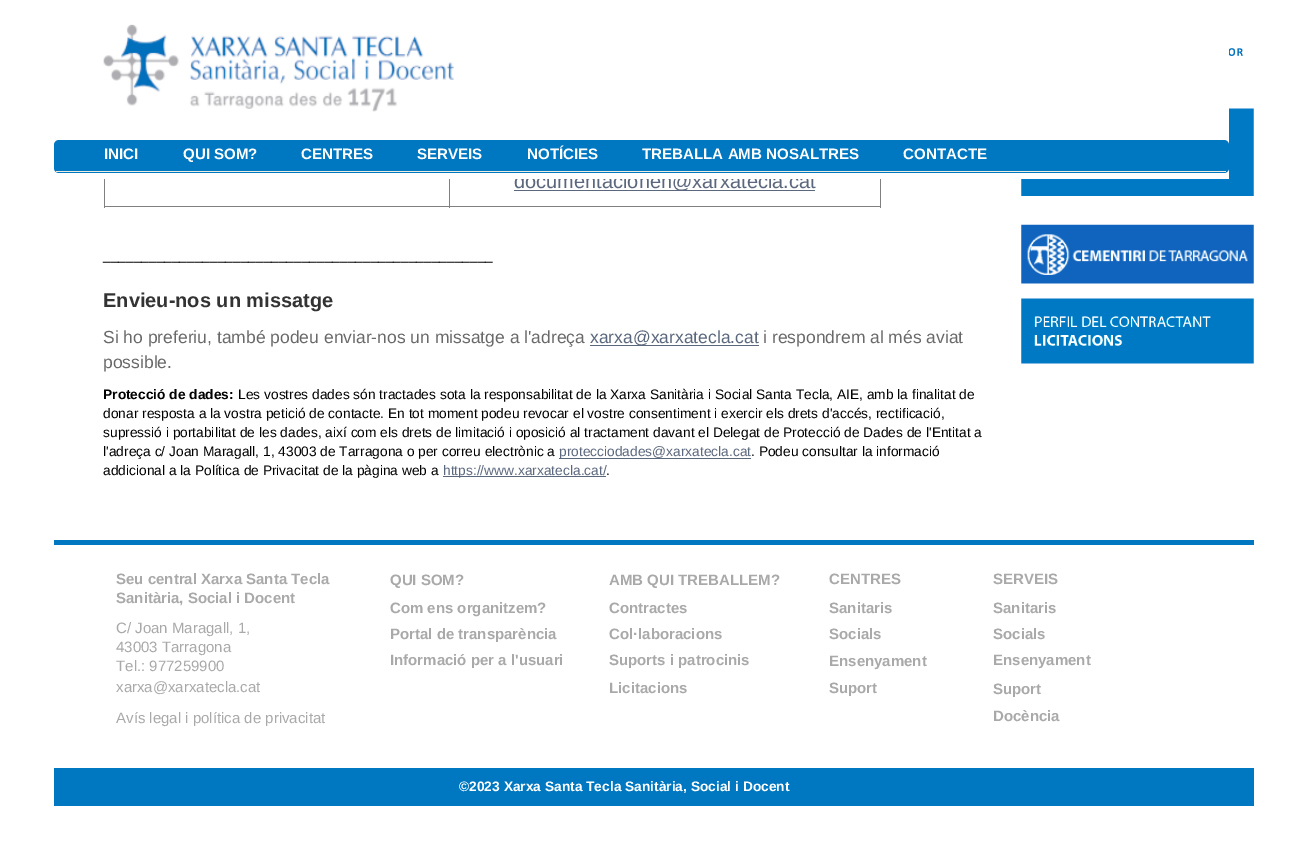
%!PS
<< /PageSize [1306 851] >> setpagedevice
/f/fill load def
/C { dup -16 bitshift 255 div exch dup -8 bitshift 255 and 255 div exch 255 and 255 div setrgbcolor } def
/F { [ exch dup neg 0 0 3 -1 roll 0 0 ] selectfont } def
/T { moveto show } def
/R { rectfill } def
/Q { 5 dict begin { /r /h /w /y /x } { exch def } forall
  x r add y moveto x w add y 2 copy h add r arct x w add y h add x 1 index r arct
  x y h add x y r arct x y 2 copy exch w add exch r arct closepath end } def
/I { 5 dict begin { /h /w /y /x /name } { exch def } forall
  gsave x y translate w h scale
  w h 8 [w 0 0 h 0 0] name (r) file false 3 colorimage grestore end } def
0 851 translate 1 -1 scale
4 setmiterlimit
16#FFFFFF C
0 0 1306 851 R
16#5B677D C
514 190 301 1 R
/LiberationSans-Regular 20 F
(documentaciohen@xarxatecla.cat) 514 188 T
(3.rgb) 1021 108 233 88 I
16#FFFFFF C
515 108 714 71 R
(1.rgb) 103 24 351 88 I
16#0078C1 C
54 140 1175 33 5 Q f
16#EEECE1 C
56 171 1170 1 R
/LiberationSans-Bold 15.1 F
16#FFFFFF C
(INICI) 104 159 T
(QUI SOM?) 183 159 T
(CENTRES) 301 159 T
(SERVEIS) 417 159 T
(NOTÍCIES) 527 159 T
(TREBALLA AMB NOSALTRES) 642 159 T
(CONTACTE) 903 159 T
16#808080 C
880 179 1 29 R
104 206 777 1 R
104 179 1 29 R
449 179 1 29 R
/LiberationSans-Regular 13.75 F
16#000000 C
(___________________________________________________) 103 260 T
/LiberationSans-Bold 20 F
16#333333 C
(Envieu-nos un missatge) 103 307 T
/LiberationSans-Regular 17.5 F
16#696969 C
(Si ho preferiu, també podeu enviar-nos un missatge a l'adreça) 103 343 T
16#5B677D C
590 345 169 1 R
(xarxa@xarxatecla.cat) 590 343 T
16#696969 C
(i respondrem al més aviat) 763 343 T
(possible.) 103 368 T
/LiberationSans-Bold 13.75 F
16#000000 C
(Protecció de dades:) 103 399 T
/LiberationSans-Regular 13.75 F
(Les vostres dades són tractades sota la responsabilitat de la Xarxa Sanitària i Social Santa Tecla, AIE, amb la finalitat de) 238 399 T
(donar resposta a la vostra petició de contacte. En tot moment podeu revocar el vostre consentiment i exercir els drets d'accés, rectificació,) 103 418 T
(supressió i portabilitat de les dades, així com els drets de limitació i oposició al tractament davant el Delegat de Protecció de Dades de l'Entitat a) 103 437 T
(l'adreça c/ Joan Maragall, 1, 43003 de Tarragona o per correu electrònic a) 103 456 T
16#5B677D C
559 458 192 1 R
(protecciodades@xarxatecla.cat) 559 456 T
16#000000 C
(. Podeu consultar la informació) 751 456 T
(addicional a la Política de Privacitat de la pàgina web a) 103 475 T
16#5B677D C
443 476 163 1 R
(https://www.xarxatecla.cat/) 443 475 T
16#000000 C
(.) 606 475 T
(2.rgb) 1229 12 14 81 I
(4.rgb) 1021 224 233 60 I
(5.rgb) 1021 298 233 66 I
16#0078C1 C
54 540 1200 5 R
/LiberationSans-Bold 15 F
16#A9A9A9 C
(Seu central Xarxa Santa Tecla) 116 584 T
(Sanitària, Social i Docent) 116 603 T
/LiberationSans-Regular 15 F
(C/ Joan Maragall, 1,) 116 633 T
(43003 Tarragona) 116 652 T
(Tel.: 977259900) 116 671 T
(xarxa@xarxatecla.cat) 116 692 T
/LiberationSans-Bold 15 F
(QUI SOM?) 390 585 T
(AMB QUI TREBALLEM?) 609 585 T
(CENTRES) 829 584 T
(SERVEIS) 993 584 T
(Com ens organitzem?) 390 613 T
(Contractes) 609 613 T
(Sanitaris) 829 613 T
(Sanitaris) 993 613 T
(Portal de transparència) 390 639 T
(Col·laboracions) 609 639 T
(Socials) 829 639 T
(Socials) 993 639 T
(Informació per a l'usuari) 390 665 T
(Suports i patrocinis) 609 665 T
(Ensenyament) 829 666 T
(Ensenyament) 993 665 T
(Licitacions) 609 693 T
(Suport) 829 693 T
(Suport) 993 694 T
/LiberationSans-Regular 15 F
(Avís legal i política de privacitat) 116 723 T
/LiberationSans-Bold 15 F
(Docència) 993 721 T
16#0078C1 C
54 768 1200 38 R
/LiberationSans-Bold 13.75 F
16#FFFFFF C
(©2023 Xarxa Santa Tecla Sanitària, Social i Docent) 459 791 T
showpage
